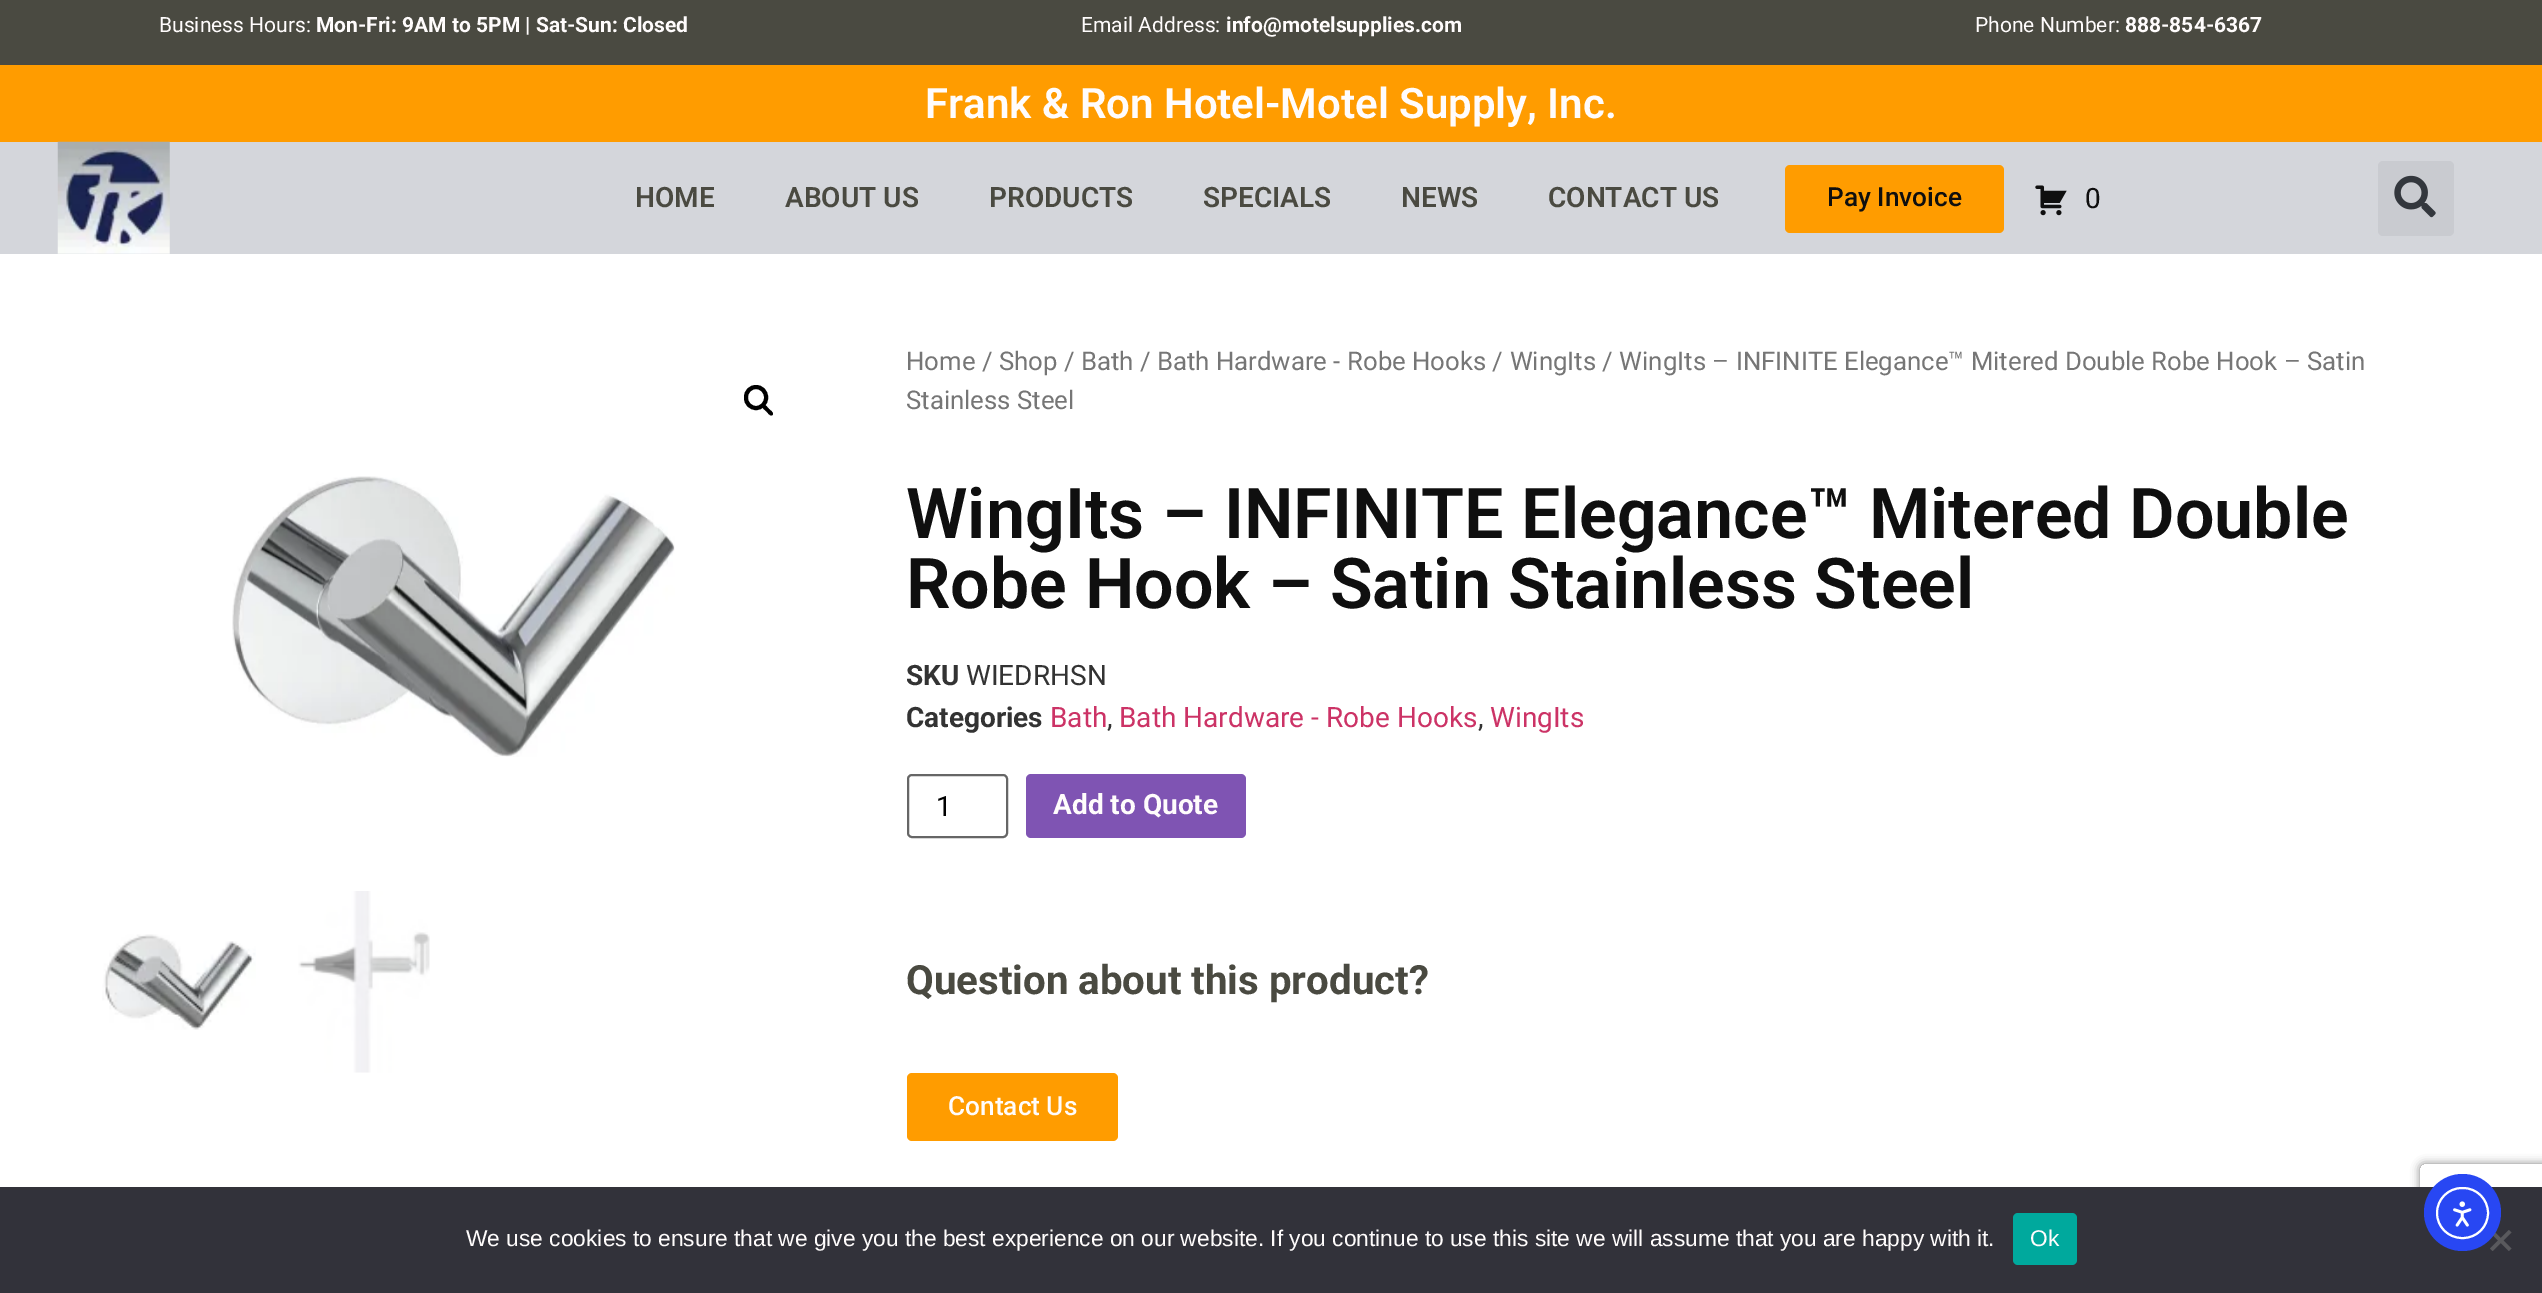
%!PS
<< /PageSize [2542 1293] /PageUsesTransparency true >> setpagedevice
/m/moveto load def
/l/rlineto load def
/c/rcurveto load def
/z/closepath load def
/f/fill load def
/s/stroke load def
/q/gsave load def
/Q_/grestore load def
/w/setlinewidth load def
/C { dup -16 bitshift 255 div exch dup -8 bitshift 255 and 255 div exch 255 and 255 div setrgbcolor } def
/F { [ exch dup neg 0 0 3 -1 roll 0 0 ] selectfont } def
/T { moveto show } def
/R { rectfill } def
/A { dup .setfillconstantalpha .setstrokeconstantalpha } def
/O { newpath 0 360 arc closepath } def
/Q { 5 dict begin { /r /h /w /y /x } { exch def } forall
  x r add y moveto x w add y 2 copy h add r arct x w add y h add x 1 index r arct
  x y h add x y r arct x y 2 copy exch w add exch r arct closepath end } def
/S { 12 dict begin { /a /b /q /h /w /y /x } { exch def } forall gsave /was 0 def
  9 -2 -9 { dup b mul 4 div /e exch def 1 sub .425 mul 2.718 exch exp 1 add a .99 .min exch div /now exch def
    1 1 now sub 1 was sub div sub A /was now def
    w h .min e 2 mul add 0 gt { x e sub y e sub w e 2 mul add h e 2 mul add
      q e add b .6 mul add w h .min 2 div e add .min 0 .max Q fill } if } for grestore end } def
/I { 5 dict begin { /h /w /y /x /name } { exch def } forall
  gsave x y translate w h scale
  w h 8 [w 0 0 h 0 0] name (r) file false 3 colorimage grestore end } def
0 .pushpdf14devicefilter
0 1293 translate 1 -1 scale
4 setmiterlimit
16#FFFFFF C
0 0 2542 1293 R
16#4A4A41 C
0 0 2542 65 R
/Roboto-Regular 21 F
16#FFFCFC C
(Business Hours:) 159 32 T
/Roboto-Bold 21 F
(Mon-Fri: 9AM to 5PM | Sat-Sun: Closed) 316 32 T
/Roboto-Regular 21 F
(Email Address:) 1081 32 T
/Roboto-Bold 21 F
(info@motelsupplies.com) 1226 32 T
/Roboto-Regular 21 F
(Phone Number:) 1975 32 T
/Roboto-Bold 21 F
(888-854-6367) 2125 32 T
16#FF9C00 C
0 65 2542 77 R
/Roboto-SemiBold 42 F
16#FFFCFC C
(Frank & Ron Hotel-Motel Supply, Inc.) 925 118 T
16#D4D6DB C
0 142 2542 112 R
(1.rgb) 57 141 113 113 I
/Roboto-SemiBold 28 F
16#4A4A41 C
(HOME) 635 207 T
(ABOUT US) 785 207 T
(PRODUCTS) 989 207 T
(SPECIALS) 1203 207 T
(NEWS) 1401 207 T
(CONTACT US) 1548 207 T
16#FF9C00 C
1785 165 219 68 5 Q f
/Roboto-Medium 26.25 F
16#0F0F0F C
(Pay Invoice) 1827 206 T
(2.rgb) 2035 185 32 31 I
/Roboto-Regular 28 F
(0) 2085 208 T
16#C9CBD0 C
2378 161 76 75 5 Q f
(3.rgb) 2394 175 42 43 I
16#000000 C
4 w
746 387 20 21 10 Q s
762.5 405 m 2 -2 5.5 3 6.5 4 c 1 1 5.5 4 3.5 6 c -2 2 -5 -2.5 -6 -3.5 c -1 -1 -6 -4.5 -4 -6.5 c z f
(4.rgb) 232 476 443 281 I
(5.rgb) 102 934 154 96 I
(6.rgb) 298 891 132 182 I
/Roboto-Regular 25.75 F
16#767676 C
(Home / Shop / Bath / Bath Hardware - Robe Hooks / WingIts / WingIts – INFINITE Elegance™ Mitered Double Robe Hook – Satin) 906 370 T
(Stainless Steel) 906 409 T
/Roboto-SemiBold 70 F
16#0F0F0F C
(WingIts – INFINITE Elegance™ Mitered Double) 906 538 T
(Robe Hook – Satin Stainless Steel) 906 608 T
/Roboto-Bold 28 F
16#333333 C
(SKU) 906 685 T
/Roboto-Regular 28 F
(WIEDRHSN) 966 685 T
/Roboto-Bold 28 F
(Categories) 906 727 T
/Roboto-Regular 28 F
16#CC3366 C
(Bath) 1050 727 T
16#333333 C
(,) 1107 727 T
16#CC3366 C
(Bath Hardware - Robe Hooks) 1119 727 T
16#333333 C
(,) 1478 727 T
16#CC3366 C
(WingIts) 1490 727 T
16#666666 C
2 w
908 775 99 62 4 Q s
16#000000 C
(1) 936 816 T
16#7F54B3 C
1026 774 220 64 5 Q f
/Roboto-Bold 28 F
16#FFFCFC C
(Add to Quote) 1053 814 T
/Roboto-Bold 40.25 F
16#4A4A41 C
(Question about this product?) 906 994 T
16#FF9C00 C
907 1073 211 68 5 Q f
/Roboto-Medium 26.25 F
16#FFFCFC C
(Contact Us) 948 1115 T
q
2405 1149 m 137 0 l 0 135 l -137 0 l z 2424 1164 m 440 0 l 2 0 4 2 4 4 c 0 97 l 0 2 -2 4 -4 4 c -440 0 l -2 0 -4 -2 -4 -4 c 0 -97 l 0 -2 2 -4 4 -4 c z eoclip newpath
16#808080 C
2420 1164 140 105 4 4.5 1 S
Q_
16#32323A C
0 1187 2542 106 R
/LiberationSans-Regular 22.75 F
16#FFFCFC C
(We use cookies to ensure that we give you the best experience on our website. If you continue to use this site we will assume that you are happy with it.) 466 1246 T
16#00A99D C
2013 1213 64 52 5 Q f
16#FFFCFC C
(Ok) 2030 1246 T
16#59595D C
2509 1230 m 2.5 2.5 l -19 18.5 l -2.5 -2.5 l z f
2490 1232.5 m 2.5 -2.5 l 19 18.5 l -2.5 2.5 l z f
16#2847F3 C
2462.5 1212.5 38.5 O f
16#FFFFFF C
2437 1188 51 50 25 Q s
(7.rgb) 2453 1201 19 26 I
.poppdf14devicefilter showpage
